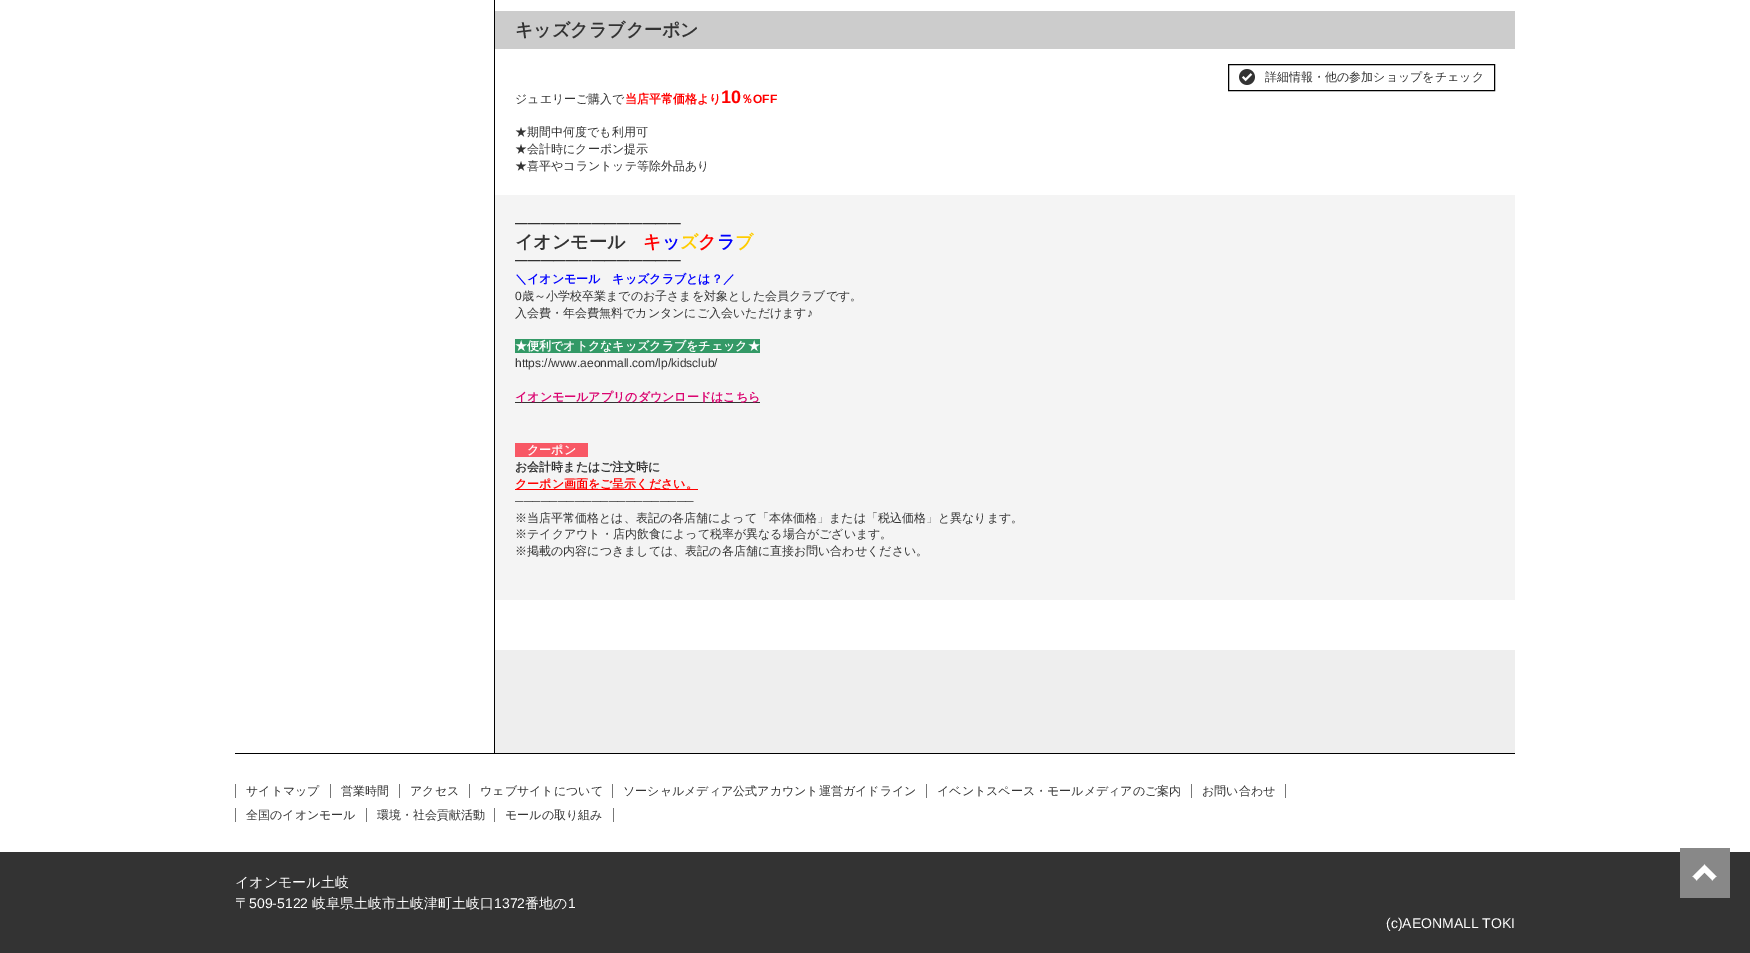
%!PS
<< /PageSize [1750 953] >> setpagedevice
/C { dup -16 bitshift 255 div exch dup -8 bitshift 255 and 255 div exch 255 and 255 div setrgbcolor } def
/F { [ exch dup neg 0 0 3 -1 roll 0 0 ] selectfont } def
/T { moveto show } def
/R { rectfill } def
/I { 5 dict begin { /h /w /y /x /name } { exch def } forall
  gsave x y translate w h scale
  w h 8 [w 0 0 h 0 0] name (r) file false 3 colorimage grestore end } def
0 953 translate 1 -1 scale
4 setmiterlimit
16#FFFFFF C
0 0 1750 953 R
16#000000 C
494 0 1 753 R
16#CCCCCC C
495 11 1020 38 R
/WenQuanYiZenHei-Bold 18 F
16#333333 C
(キッズクラブクーポン) 515 36 T
16#000000 C
1228.5 64.5 266 26 rectstroke
(1.rgb) 1239 69 16 16 I
/WenQuanYiZenHei-Medium 12 F
16#333333 C
(詳細情報・他の参加ショップをチェック) 1265 81 T
(ジュエリーご購入で) 515 103 T
/WenQuanYiZenHei-Bold 12 F
16#FF0000 C
(当店平常価格より) 625 103 T
/LiberationSans-Bold 18 F
(10) 721 103 T
/WenQuanYiZenHei-Bold 12 F
(％) 741 103 T
/LiberationSans-Bold 12 F
(OFF) 753 103 T
/WenQuanYiZenHei-Medium 12 F
16#333333 C
(★期間中何度でも利用可) 515 136 T
(★会計時にクーポン提示) 515 153 T
(★喜平やコラントッテ等除外品あり) 515 170 T
16#F4F4F4 C
495 195 1020 405 R
/LiberationSans-Bold 18 F
16#333333 C
(─────────────) 515 229 T
/WenQuanYiZenHei-Bold 18 F
(イオンモール) 515 248 T
16#FF0000 C
(キ) 643 248 T
16#0000FF C
(ッ) 662 248 T
16#FFCC00 C
(ズ) 680 248 T
16#FF0000 C
(ク) 698 248 T
16#0000FF C
(ラ) 717 248 T
16#FFCC00 C
(ブ) 735 248 T
/LiberationSans-Bold 18 F
16#333333 C
(─────────────) 515 266 T
/WenQuanYiZenHei-Bold 12 F
16#0000FF C
(＼イオンモール　キッズクラブとは？／) 515 283 T
/LiberationSans-Regular 12 F
16#333333 C
(0) 515 300 T
/WenQuanYiZenHei-Medium 12 F
(歳～小学校卒業までのお子さまを対象とした会員クラブです。) 522 300 T
(入会費・年会費無料でカンタンにご入会いただけます) 515 317 T
/LiberationSans-Regular 12 F
(♪) 807 317 T
16#339966 C
515 339 245 14 R
/WenQuanYiZenHei-Bold 12 F
16#FFFFFF C
(★便利でオトクなキッズクラブをチェック★) 515 350 T
/LiberationSans-Regular 12 F
16#333333 C
(https://www.aeonmall.com/lp/kidsclub/) 515 367 T
515 402 245 1 R
/WenQuanYiZenHei-Bold 12 F
16#DB0470 C
(イオンモールアプリのダウンロードはこちら) 515 401 T
16#F85865 C
515 443 73 14 R
16#FFFFFF C
(クーポン) 527 454 T
16#333333 C
(お会計時またはご注文時に) 515 471 T
16#FF0000 C
515 489 183 1 R
(クーポン画面をご呈示ください。) 515 488 T
/LiberationSans-Regular 12 F
16#333333 C
(─────────────────────) 515 505 T
/WenQuanYiZenHei-Medium 12 F
(※当店平常価格とは、表記の各店舗によって「本体価格」または「税込価格」と異なります。) 515 522 T
(※テイクアウト・店内飲食によって税率が異なる場合がございます。) 515 538 T
(※掲載の内容につきましては、表記の各店舗に直接お問い合わせください。) 515 555 T
16#EEEEEE C
495 650 1020 103 R
16#000000 C
235 753 1280 1 R
16#777777 C
330 784 1 14 R
235 784 1 14 R
16#333333 C
(サイトマップ) 246 795 T
16#777777 C
399 784 1 14 R
16#333333 C
(営業時間) 341 795 T
16#777777 C
469 784 1 14 R
16#333333 C
(アクセス) 410 795 T
16#777777 C
612 784 1 14 R
16#333333 C
(ウェブサイトについて) 480 795 T
16#777777 C
926 784 1 14 R
16#333333 C
(ソーシャルメディア公式アカウント運営ガイドライン) 623 795 T
16#777777 C
1191 784 1 14 R
16#333333 C
(イベントスペース・モールメディアのご案内) 937 795 T
16#777777 C
1285 784 1 14 R
16#333333 C
(お問い合わせ) 1202 795 T
16#777777 C
366 808 1 14 R
235 808 1 14 R
16#333333 C
(全国のイオンモール) 246 819 T
16#777777 C
494 808 1 14 R
16#333333 C
(環境・社会貢献活動) 377 819 T
16#777777 C
613 808 1 14 R
16#333333 C
(モールの取り組み) 505 819 T
0 852 1750 101 R
/WenQuanYiZenHei-Medium 14 F
16#FFFFFF C
(イオンモール土岐) 235 887 T
(〒) 235 908 T
/LiberationSans-Regular 14 F
(509-5122) 249 908 T
/WenQuanYiZenHei-Medium 14 F
(岐阜県土岐市土岐津町土岐口) 312 908 T
/LiberationSans-Regular 14 F
(1372) 494 908 T
/WenQuanYiZenHei-Medium 14 F
(番地の) 525 908 T
/LiberationSans-Regular 14 F
(1) 568 908 T
(\(c\)AEONMALL TOKI) 1386 928 T
(2.rgb) 1680 848 50 50 I
showpage
